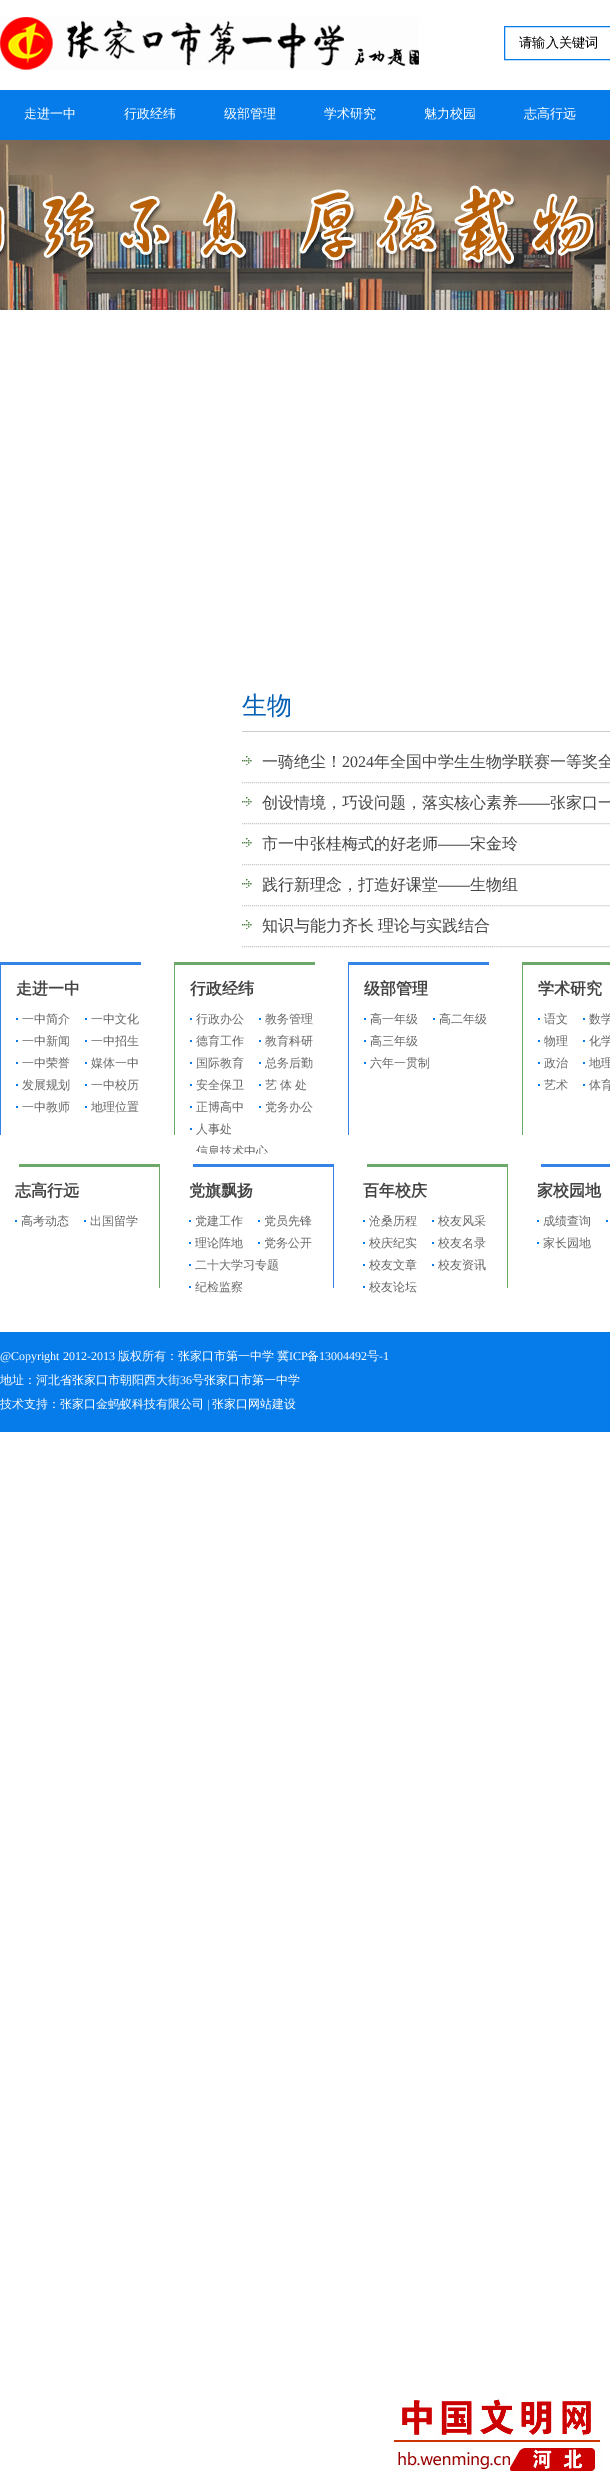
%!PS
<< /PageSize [610 2480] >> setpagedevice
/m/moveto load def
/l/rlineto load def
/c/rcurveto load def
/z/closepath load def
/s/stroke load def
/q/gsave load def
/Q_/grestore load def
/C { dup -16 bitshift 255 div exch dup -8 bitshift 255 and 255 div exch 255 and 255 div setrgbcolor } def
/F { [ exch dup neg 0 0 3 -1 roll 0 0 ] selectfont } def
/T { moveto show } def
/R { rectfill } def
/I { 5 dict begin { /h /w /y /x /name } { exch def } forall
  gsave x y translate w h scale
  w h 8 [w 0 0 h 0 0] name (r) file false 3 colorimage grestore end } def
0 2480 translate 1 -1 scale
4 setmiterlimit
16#FFFFFF C
0 0 610 2480 R
(1.rgb) 0 17 419 53 I
16#067CEA C
504.5 26.5 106 33 rectstroke
/WenQuanYiZenHei-Medium 13.25 F
16#000000 C
(请输入关键词) 519 47 T
16#067CEA C
0 90 610 50 R
/WenQuanYiZenHei-Medium 13 F
16#FFFFFF C
(走进一中) 24 118 T
(行政经纬) 124 118 T
(级部管理) 224 118 T
(学术研究) 324 118 T
(魅力校园) 424 118 T
(志高行远) 524 118 T
(2.rgb) 0 140 610 170 I
16#CCCCCC C
242 731 368 1 R
/WenQuanYiZenHei-Medium 25 F
16#0661B6 C
(生物) 242 714 T
(3.rgb) 242 756 10 9 I
16#CCCCCC C
[1 1] 0 setdash
242 782.5 m 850 0 l s
/WenQuanYiZenHei-Medium 16 F
16#444444 C
(一骑绝尘！) 262 767 T
/LiberationSerif-Regular 16 F
(2024) 342 767 T
/WenQuanYiZenHei-Medium 16 F
(年全国中学生生物学联赛一等奖全) 374 767 T
(3.rgb) 242 797 10 9 I
16#CCCCCC C
242 823.5 m 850 0 l s
16#444444 C
(创设情境，巧设问题，落实核心素养) 262 808 T
/LiberationSerif-Regular 16 F
(——) 518 808 T
/WenQuanYiZenHei-Medium 16 F
(张家口一) 550 808 T
(3.rgb) 242 838 10 9 I
16#CCCCCC C
242 864.5 m 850 0 l s
16#444444 C
(市一中张桂梅式的好老师) 262 849 T
/LiberationSerif-Regular 16 F
(——) 438 849 T
/WenQuanYiZenHei-Medium 16 F
(宋金玲) 470 849 T
(3.rgb) 242 879 10 9 I
16#CCCCCC C
242 905.5 m 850 0 l s
16#444444 C
(践行新理念，打造好课堂) 262 890 T
/LiberationSerif-Regular 16 F
(——) 438 890 T
/WenQuanYiZenHei-Medium 16 F
(生物组) 470 890 T
(3.rgb) 242 920 10 9 I
16#CCCCCC C
242 946.5 m 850 0 l s
16#444444 C
(知识与能力齐长) 262 931 T
(理论与实践结合) 378 931 T
16#3384E6 C
0 962 141 3 R
0 962 1 173 R
/WenQuanYiZenHei-Bold 16 F
16#444444 C
(走进一中) 16 994 T
16#067CEA C
16 1018 2 2 R
/WenQuanYiZenHei-Medium 12 F
16#666666 C
(一中简介) 22 1023 T
16#067CEA C
85 1018 2 2 R
16#666666 C
(一中文化) 91 1023 T
16#067CEA C
16 1040 2 2 R
16#666666 C
(一中新闻) 22 1045 T
16#067CEA C
85 1040 2 2 R
16#666666 C
(一中招生) 91 1045 T
16#067CEA C
16 1062 2 2 R
16#666666 C
(一中荣誉) 22 1067 T
16#067CEA C
85 1062 2 2 R
16#666666 C
(媒体一中) 91 1067 T
16#067CEA C
16 1084 2 2 R
16#666666 C
(发展规划) 22 1089 T
16#067CEA C
85 1084 2 2 R
16#666666 C
(一中校历) 91 1089 T
16#067CEA C
16 1106 2 2 R
16#666666 C
(一中教师) 22 1111 T
16#067CEA C
85 1106 2 2 R
16#666666 C
(地理位置) 91 1111 T
16#6EA869 C
174 962 141 3 R
174 962 1 173 R
/WenQuanYiZenHei-Bold 16 F
16#444444 C
(行政经纬) 190 994 T
16#067CEA C
190 1018 2 2 R
/WenQuanYiZenHei-Medium 12 F
16#666666 C
(行政办公) 196 1023 T
16#067CEA C
259 1018 2 2 R
16#666666 C
(教务管理) 265 1023 T
16#067CEA C
190 1040 2 2 R
16#666666 C
(德育工作) 196 1045 T
16#067CEA C
259 1040 2 2 R
16#666666 C
(教育科研) 265 1045 T
16#067CEA C
190 1062 2 2 R
16#666666 C
(国际教育) 196 1067 T
16#067CEA C
259 1062 2 2 R
16#666666 C
(总务后勤) 265 1067 T
16#067CEA C
190 1084 2 2 R
16#666666 C
(安全保卫) 196 1089 T
16#067CEA C
259 1084 2 2 R
16#666666 C
(艺) 265 1089 T
(体) 280 1089 T
(处) 295 1089 T
16#067CEA C
190 1106 2 2 R
16#666666 C
(正博高中) 196 1111 T
16#067CEA C
259 1106 2 2 R
16#666666 C
(党务办公) 265 1111 T
16#067CEA C
190 1128 2 2 R
16#666666 C
(人事处) 196 1133 T
q
175 965 m 121 0 l 21 0 38 15.5 38 35 c 0 154 l -122 0 l -20.5 0 -37 -17 -37 -38 c z clip newpath
(信息技术中心) 196 1155 T
Q_
16#3384E6 C
348 962 141 3 R
348 962 1 173 R
/WenQuanYiZenHei-Bold 16 F
16#444444 C
(级部管理) 364 994 T
16#067CEA C
364 1018 2 2 R
/WenQuanYiZenHei-Medium 12 F
16#666666 C
(高一年级) 370 1023 T
16#067CEA C
433 1018 2 2 R
16#666666 C
(高二年级) 439 1023 T
16#067CEA C
364 1040 2 2 R
16#666666 C
(高三年级) 370 1045 T
16#067CEA C
364 1062 2 2 R
16#666666 C
(六年一贯制) 370 1067 T
16#6EA869 C
522 962 88 3 R
522 962 1 173 R
/WenQuanYiZenHei-Bold 16 F
16#444444 C
(学术研究) 538 994 T
16#067CEA C
538 1018 2 2 R
/WenQuanYiZenHei-Medium 12 F
16#666666 C
(语文) 544 1023 T
16#067CEA C
583 1018 2 2 R
16#666666 C
(数学) 589 1023 T
16#067CEA C
538 1040 2 2 R
16#666666 C
(物理) 544 1045 T
16#067CEA C
583 1040 2 2 R
16#666666 C
(化学) 589 1045 T
16#067CEA C
538 1062 2 2 R
16#666666 C
(政治) 544 1067 T
16#067CEA C
583 1062 2 2 R
16#666666 C
(地理) 589 1067 T
16#067CEA C
538 1084 2 2 R
16#666666 C
(艺术) 544 1089 T
16#067CEA C
583 1084 2 2 R
16#666666 C
(体育) 589 1089 T
16#6EA869 C
19 1164 141 3 R
159 1164 1 124 R
/WenQuanYiZenHei-Bold 16 F
16#444444 C
(志高行远) 15 1196 T
16#067CEA C
15 1220 2 2 R
/WenQuanYiZenHei-Medium 12 F
16#666666 C
(高考动态) 21 1225 T
16#067CEA C
84 1220 2 2 R
16#666666 C
(出国留学) 90 1225 T
16#3384E6 C
193 1164 141 3 R
333 1164 1 124 R
/WenQuanYiZenHei-Bold 16 F
16#444444 C
(党旗飘扬) 189 1196 T
16#067CEA C
189 1220 2 2 R
/WenQuanYiZenHei-Medium 12 F
16#666666 C
(党建工作) 195 1225 T
16#067CEA C
258 1220 2 2 R
16#666666 C
(党员先锋) 264 1225 T
16#067CEA C
189 1242 2 2 R
16#666666 C
(理论阵地) 195 1247 T
16#067CEA C
258 1242 2 2 R
16#666666 C
(党务公开) 264 1247 T
16#067CEA C
189 1264 2 2 R
16#666666 C
(二十大学习专题) 195 1269 T
16#067CEA C
189 1286 2 2 R
16#666666 C
(纪检监察) 195 1291 T
16#6EA869 C
367 1164 141 3 R
507 1164 1 124 R
/WenQuanYiZenHei-Bold 16 F
16#444444 C
(百年校庆) 363 1196 T
16#067CEA C
363 1220 2 2 R
/WenQuanYiZenHei-Medium 12 F
16#666666 C
(沧桑历程) 369 1225 T
16#067CEA C
432 1220 2 2 R
16#666666 C
(校友风采) 438 1225 T
16#067CEA C
363 1242 2 2 R
16#666666 C
(校庆纪实) 369 1247 T
16#067CEA C
432 1242 2 2 R
16#666666 C
(校友名录) 438 1247 T
16#067CEA C
363 1264 2 2 R
16#666666 C
(校友文章) 369 1269 T
16#067CEA C
432 1264 2 2 R
16#666666 C
(校友资讯) 438 1269 T
16#067CEA C
363 1286 2 2 R
16#666666 C
(校友论坛) 369 1291 T
16#3384E6 C
541 1164 69 3 R
/WenQuanYiZenHei-Bold 16 F
16#444444 C
(家校园地) 537 1196 T
16#067CEA C
537 1220 2 2 R
/WenQuanYiZenHei-Medium 12 F
16#666666 C
(成绩查询) 543 1225 T
16#067CEA C
606 1220 2 2 R
537 1242 2 2 R
16#666666 C
(家长园地) 543 1247 T
16#067CEA C
0 1332 610 100 R
/LiberationSerif-Regular 12 F
16#FFFFFF C
(@Copyright 2012-2013) 0 1360 T
/WenQuanYiZenHei-Medium 12 F
(版权所有：张家口市第一中学) 118 1360 T
(冀) 277 1360 T
/LiberationSerif-Regular 12 F
(ICP) 289 1360 T
/WenQuanYiZenHei-Medium 12 F
(备) 307 1360 T
/LiberationSerif-Regular 12 F
(13004492) 319 1360 T
/WenQuanYiZenHei-Medium 12 F
(号) 367 1360 T
/LiberationSerif-Regular 12 F
(-1) 379 1360 T
/WenQuanYiZenHei-Medium 12 F
(地址：河北省张家口市朝阳西大街) 0 1384 T
/LiberationSerif-Regular 12 F
(36) 180 1384 T
/WenQuanYiZenHei-Medium 12 F
(号张家口市第一中学) 192 1384 T
(技术支持：张家口金蚂蚁科技有限公司) 0 1408 T
/LiberationSerif-Regular 12 F
(|) 207 1408 T
/WenQuanYiZenHei-Medium 12 F
(张家口网站建设) 212 1408 T
(4.rgb) 394 2392 208 80 I
showpage
